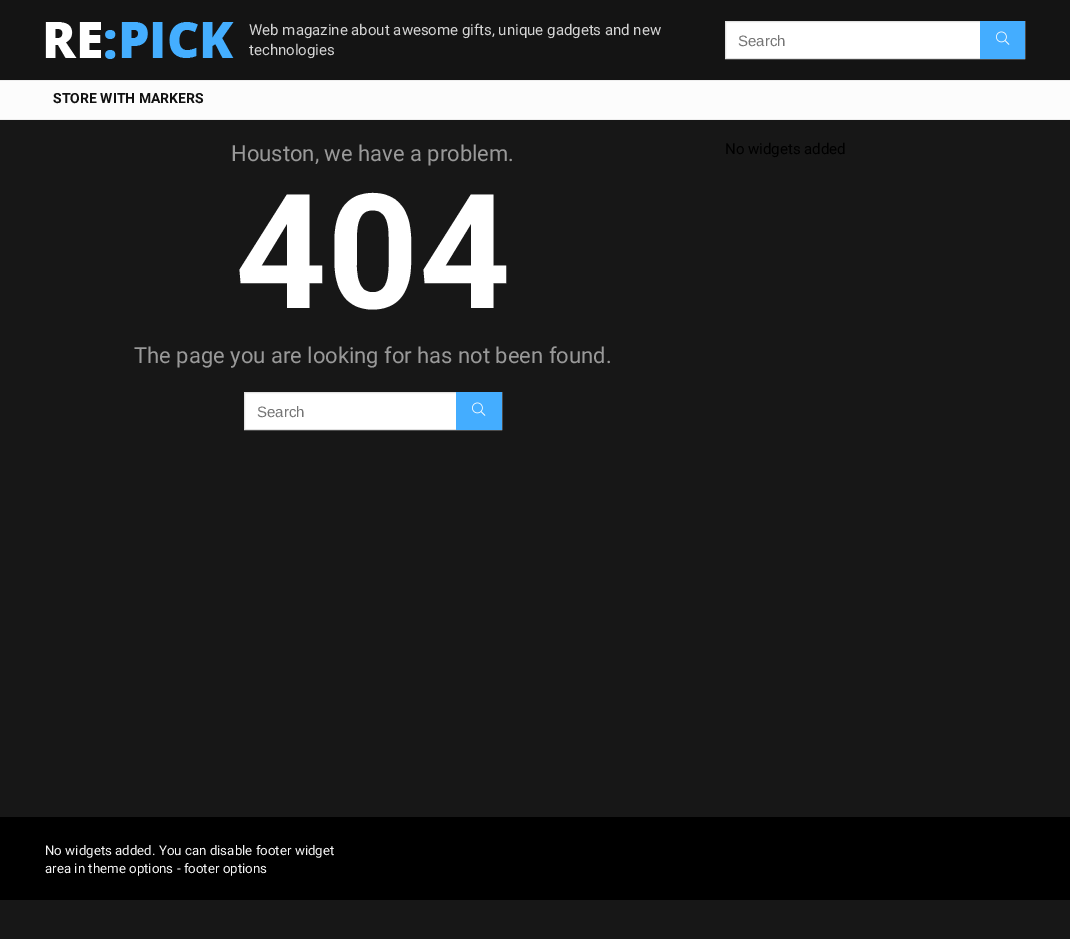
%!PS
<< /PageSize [1070 939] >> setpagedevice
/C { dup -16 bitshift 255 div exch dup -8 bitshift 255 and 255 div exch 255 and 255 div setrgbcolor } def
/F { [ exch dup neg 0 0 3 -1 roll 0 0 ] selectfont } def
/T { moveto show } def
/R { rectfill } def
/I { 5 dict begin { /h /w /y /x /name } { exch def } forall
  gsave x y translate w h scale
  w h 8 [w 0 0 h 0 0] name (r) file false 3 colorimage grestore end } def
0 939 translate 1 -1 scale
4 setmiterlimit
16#171717 C
0 0 1070 939 R
16#141414 C
0 0 1070 80 R
(1.rgb) 45 22 189 37 I
/Roboto-Regular 15 F
16#D3D3D3 C
(Web magazine about awesome gifts, unique gadgets and new) 249 35 T
(technologies) 249 55 T
16#FFFFFF C
726 22 254 36 R
16#E1E1E1 C
725.5 21.5 299 37 rectstroke
/LiberationSans-Regular 15 F
16#757575 C
(Search) 738 46 T
16#44ADFF C
980 21 45 38 R
(2.rgb) 996 31 14 14 I
16#FCFCFC C
0 81 1070 38 R
16#EEEEEE C
0 80 1070 1 R
0 119 1070 1 R
/Roboto-Bold 14 F
16#111111 C
(STORE WITH MARKERS) 53 103 T
/Roboto-Regular 22 F
16#999999 C
(Houston, we have a problem.) 231 161 T
/Roboto-Bold 160 F
16#FFFFFF C
(404) 235 308 T
/Roboto-Regular 22 F
16#999999 C
(The page you are looking for has not been found.) 134 363 T
16#FFFFFF C
245 393 211 36 R
16#E1E1E1 C
244.5 392.5 257 37 rectstroke
/LiberationSans-Regular 15 F
16#757575 C
(Search) 257 417 T
16#44ADFF C
456 392 46 38 R
(2.rgb) 472 402 14 14 I
/Roboto-Regular 15 F
16#000000 C
(No widgets added) 725 154 T
0 817 1070 83 R
/Roboto-Regular 13.3 F
16#F5F5F5 C
(No widgets added. You can disable footer widget) 45 855 T
(area in theme options - footer options) 45 873 T
showpage
